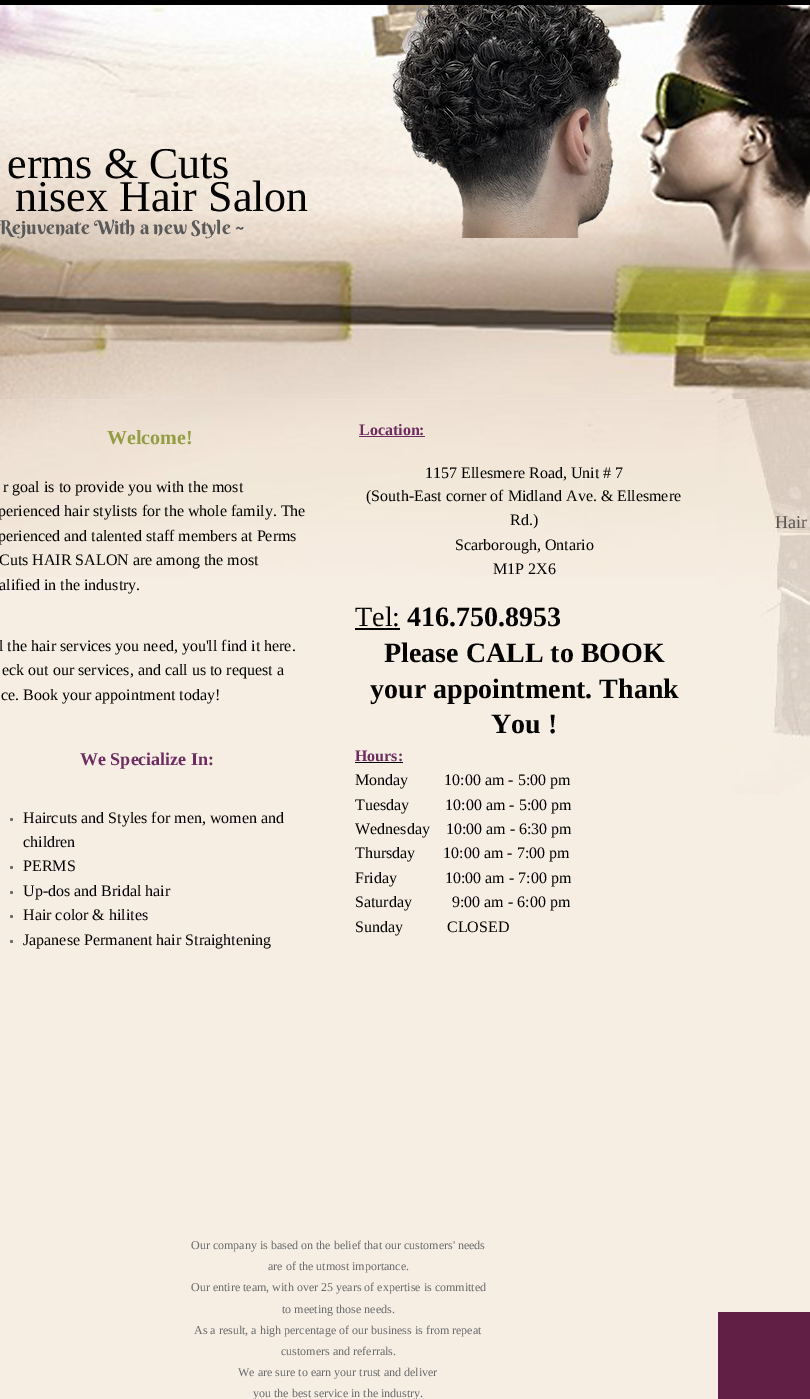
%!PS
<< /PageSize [810 1399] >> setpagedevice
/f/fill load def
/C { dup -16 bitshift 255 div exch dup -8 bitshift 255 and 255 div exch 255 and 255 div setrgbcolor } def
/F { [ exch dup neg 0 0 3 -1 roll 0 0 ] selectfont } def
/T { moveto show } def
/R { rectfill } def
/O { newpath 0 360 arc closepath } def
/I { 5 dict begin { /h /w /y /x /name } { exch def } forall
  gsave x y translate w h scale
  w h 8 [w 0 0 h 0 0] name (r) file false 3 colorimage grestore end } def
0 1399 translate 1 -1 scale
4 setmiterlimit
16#611F45 C
0 0 810 1399 R
(1.rgb) 0 5 810 394 I
16#000000 C
0 0 810 5 R
/LiberationSerif-Regular 44 F
16#020302 C
(erms & Cuts) 7 178 T
(nisex Hair Salon) 15 211 T
/BerkshireSwash-Regular 19 F
16#595959 C
(Rejuvenate With a new Style ~) -3 234 T
(2.rgb) 391 5 236 233 I
(3.rgb) 0 399 717 178 I
/LiberationSerif-Bold 20 F
16#949D43 C
(Welcome!) 107 444 T
/LiberationSerif-Regular 16 F
16#020302 C
(r goal is to provide you with the most) 3 492 T
(perienced hair stylists for the whole family. The) -2 516 T
(perienced and talented staff members at Perms) -2 541 T
(Cuts HAIR SALON are among the most) -1 565 T
16#F6EEE3 C
0 577 718 822 R
16#020302 C
(alified in the industry.) -1 590 T
(l the hair services you need, you'll find it here.) -1 651 T
(eck out our services, and call us to request a) 2 675 T
(ce. Book your appointment today!) 1 700 T
/LiberationSerif-Bold 18 F
16#6D2D60 C
(We Specialize In:) 80 765 T
16#67696C C
11.5 819.5 1.5 O f
/LiberationSerif-Regular 16 F
16#020302 C
(Haircuts and Styles for men, women and) 23 823 T
(children) 23 847 T
16#67696C C
11.5 867.5 1.5 O f
16#020302 C
(PERMS) 23 871 T
16#67696C C
11.5 892.5 1.5 O f
16#020302 C
(Up-dos and Bridal hair) 23 896 T
16#67696C C
11.5 916.5 1.5 O f
16#020302 C
(Hair color & hilites) 23 920 T
16#67696C C
11.5 941.5 1.5 O f
16#020302 C
(Japanese Permanent hair Straightening) 23 945 T
/LiberationSerif-Bold 16 F
16#6D2D60 C
(Location:) 359 435 T
359 436 66 1 R
/LiberationSerif-Regular 16 F
16#020302 C
(1157 Ellesmere Road, Unit # 7) 425 478 T
(\(South-East corner of Midland Ave. & Ellesmere) 366 501 T
(Rd.\)) 510 525 T
(Scarborough, Ontario) 455 550 T
(M1P 2X6) 493 574 T
/LiberationSerif-Regular 28 F
(Tel:) 355 626 T
355 628 45 2 R
/LiberationSerif-Bold 28 F
(416.750.8953) 407 626 T
(Please CALL to BOOK) 384 662 T
(your appointment. Thank) 370 698 T
(You !) 491 733 T
/LiberationSerif-Bold 16 F
16#6D2D60 C
(Hours:) 355 761 T
16#020302 C
355 762 48 1 R
/LiberationSerif-Regular 16 F
(Monday         10:00 am - 5:00 pm) 355 785 T
(Tuesday         10:00 am - 5:00 pm) 355 810 T
(Wednesday    10:00 am - 6:30 pm) 355 834 T
(Thursday       10:00 am - 7:00 pm) 355 858 T
(Friday            10:00 am - 7:00 pm) 355 883 T
(Saturday          9:00 am - 6:00 pm) 355 907 T
(Sunday           CLOSED) 355 932 T
/LiberationSerif-Regular 12 F
16#67696C C
(Our company is based on the belief that our customers' needs) 191 1249 T
(are of the utmost importance.) 268 1270 T
(Our entire team, with over 25 years of expertise is committed) 191 1291 T
(to meeting those needs.) 282 1313 T
(As a result, a high percentage of our business is from repeat) 194 1334 T
(customers and referrals.) 281 1355 T
(We are sure to earn your trust and deliver) 238 1376 T
(you the best service in the industry.) 253 1397 T
(4.rgb) 717 399 93 395 I
/LiberationSerif-Regular 18 F
16#5A5550 C
(Hair) 775 528 T
16#F6EEE3 C
718 794 92 518 R
showpage
